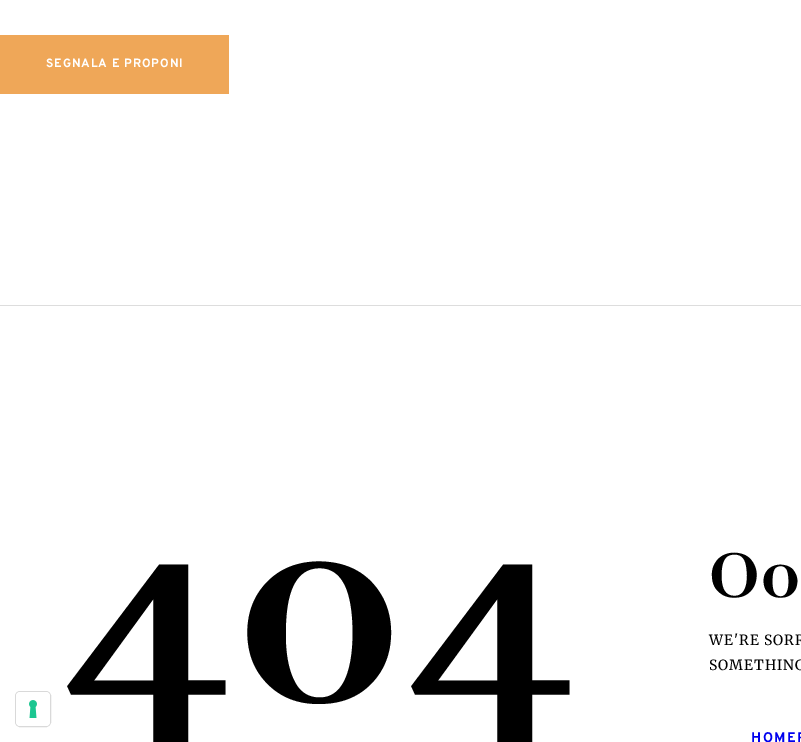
%!PS
<< /PageSize [801 742] >> setpagedevice
/m/moveto load def
/f/fill load def
/s/stroke load def
/C { dup -16 bitshift 255 div exch dup -8 bitshift 255 and 255 div exch 255 and 255 div setrgbcolor } def
/F { [ exch dup neg 0 0 3 -1 roll 0 0 ] selectfont } def
/T { moveto show } def
/R { rectfill } def
/Q { 5 dict begin { /r /h /w /y /x } { exch def } forall
  x r add y moveto x w add y 2 copy h add r arct x w add y h add x 1 index r arct
  x y h add x y r arct x y 2 copy exch w add exch r arct closepath end } def
/I { 5 dict begin { /h /w /y /x /name } { exch def } forall
  gsave x y translate w h scale
  w h 8 [w 0 0 h 0 0] name (r) file false 3 colorimage grestore end } def
0 742 translate 1 -1 scale
4 setmiterlimit
16#FFFFFF C
0 0 801 742 R
16#D9D9D9 C
15.5 691.5 35 35 4.5 Q s
16#FFFFFF C
16 692 34 34 4 Q f
(1.rgb) 29 700 8 18 I
16#EFA758 C
0 35 229 59 R
/Overpass-Bold 12 F
16#FFFFFF C
46 67 m .9 0 (SEGNALA E PROPONI) ashow
16#DDDDDD C
0 305 801 1 R
/Rufina-Bold 280 F
16#000000 C
(404) 62 701 T
/Rufina-Bold 65 F
709 597 m 1 0 (Oo) ashow
/Merriweather-Regular 14 F
709 645 m 1 0 (WE'RE SORR) ashow
709 670 m 1 0 (SOMETHING) ashow
/Overpass-Bold 14 F
16#0000EE C
751 742 m 1.5 0 (HOMEP) ashow
showpage
